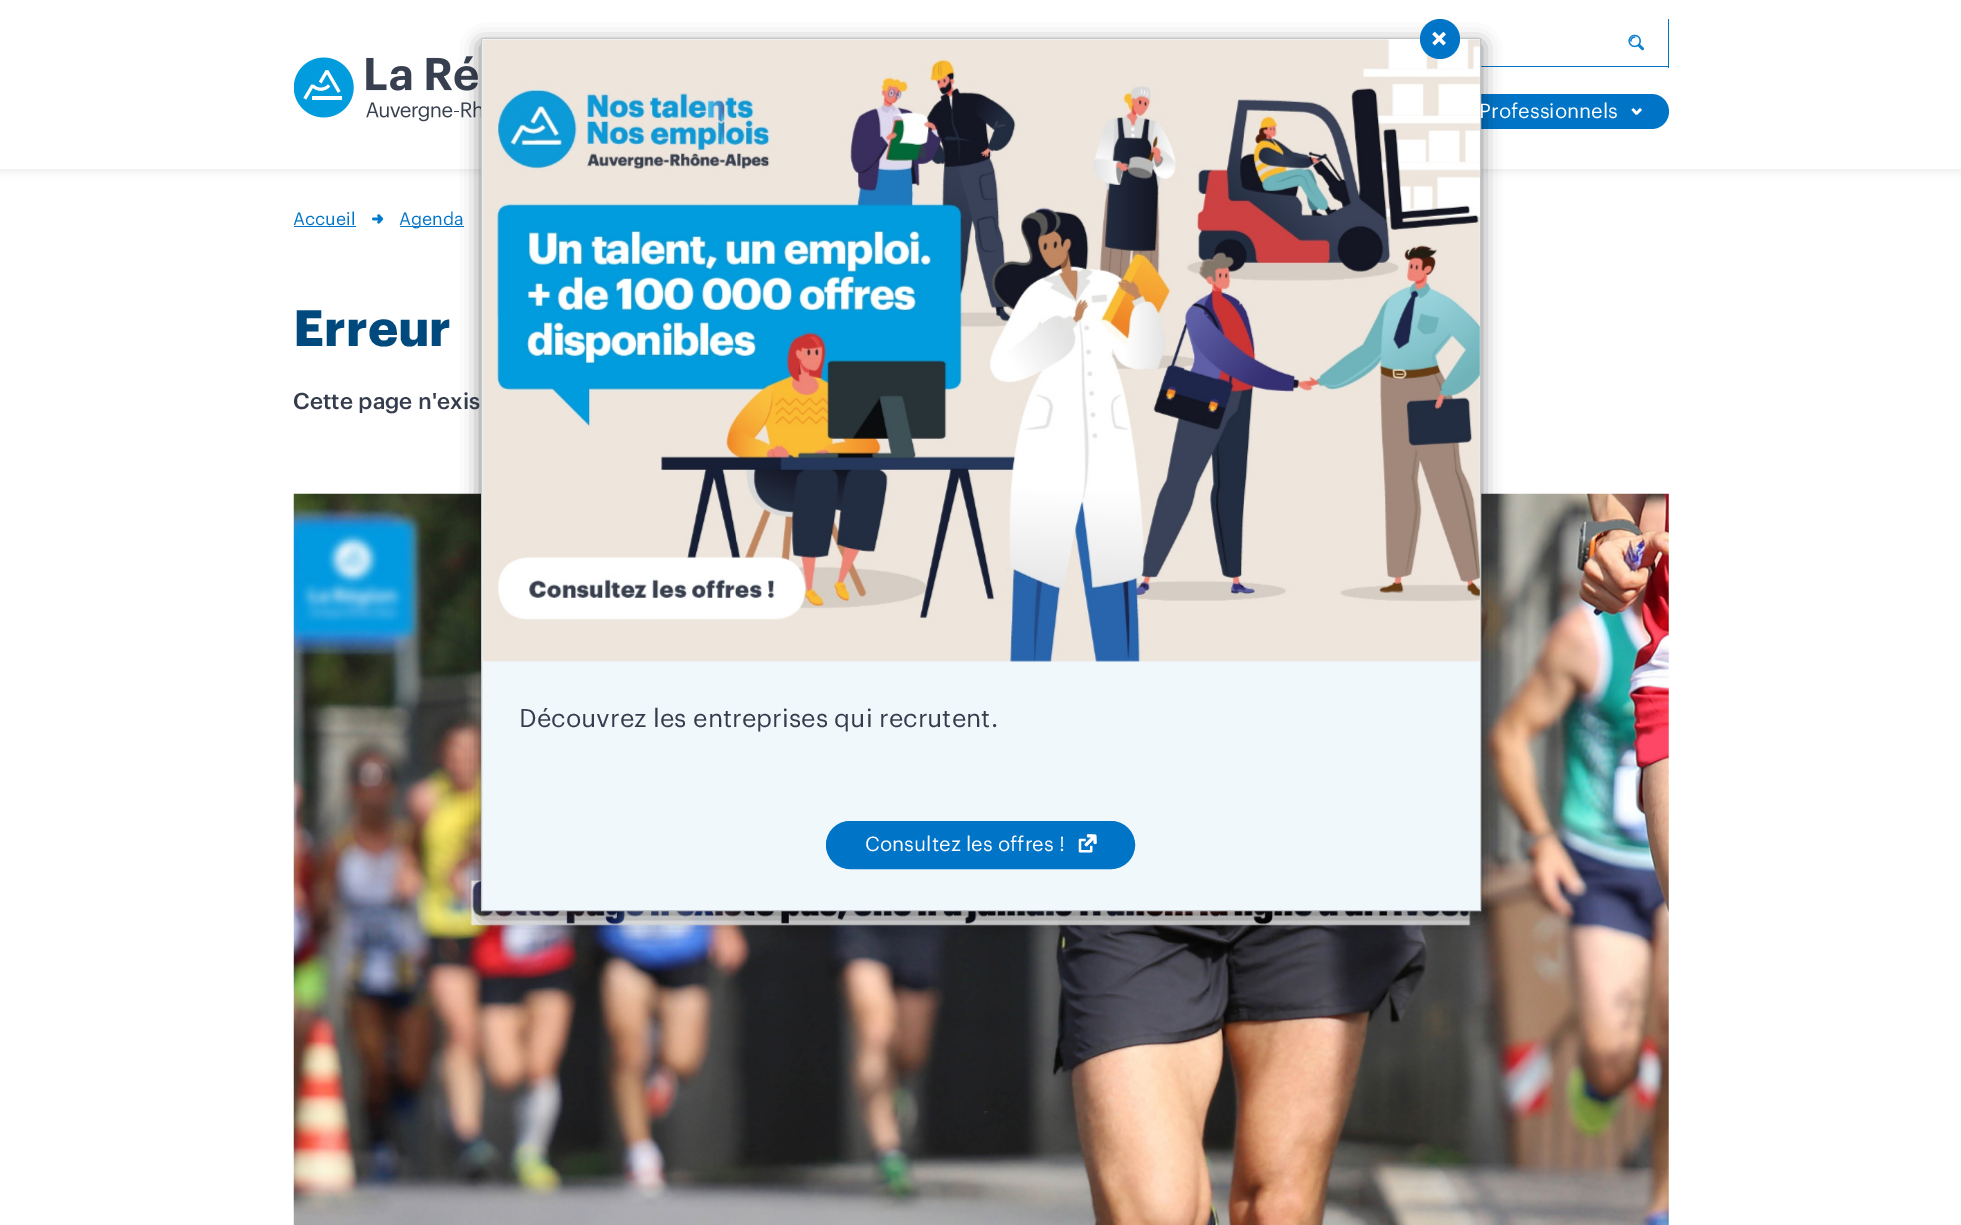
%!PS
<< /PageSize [1961 1225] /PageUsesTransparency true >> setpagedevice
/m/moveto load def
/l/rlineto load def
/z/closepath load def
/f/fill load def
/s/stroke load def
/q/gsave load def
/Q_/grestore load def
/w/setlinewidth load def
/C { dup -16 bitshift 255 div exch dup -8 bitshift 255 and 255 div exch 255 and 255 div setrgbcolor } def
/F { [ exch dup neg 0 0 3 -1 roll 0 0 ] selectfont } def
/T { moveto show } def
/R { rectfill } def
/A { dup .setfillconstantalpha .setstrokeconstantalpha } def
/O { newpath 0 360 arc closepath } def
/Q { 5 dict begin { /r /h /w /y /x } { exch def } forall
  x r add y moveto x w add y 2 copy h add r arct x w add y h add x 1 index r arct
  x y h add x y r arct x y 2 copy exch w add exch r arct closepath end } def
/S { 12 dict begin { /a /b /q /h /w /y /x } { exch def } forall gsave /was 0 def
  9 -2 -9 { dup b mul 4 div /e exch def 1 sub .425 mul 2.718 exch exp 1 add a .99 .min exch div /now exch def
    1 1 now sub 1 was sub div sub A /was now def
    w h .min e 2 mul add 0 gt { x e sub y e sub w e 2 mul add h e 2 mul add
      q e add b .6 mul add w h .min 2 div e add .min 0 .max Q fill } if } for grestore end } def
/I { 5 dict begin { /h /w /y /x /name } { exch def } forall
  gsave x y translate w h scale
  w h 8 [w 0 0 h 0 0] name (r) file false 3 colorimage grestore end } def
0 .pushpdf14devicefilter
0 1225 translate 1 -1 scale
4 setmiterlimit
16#FFFFFF C
0 0 1961 1225 R
16#000000 C
0 3 1961 168 0 4 .08 S
16#FFFFFF C
0 0 1961 169 R
(3.rgb) 294 56 187 66 I
16#0074C7 C
1668 19 1 49 R
1481 66 188 1 R
1441 94 228 35 17.5 Q f
400 226 64 1 R
(6.rgb) 293 493 1376 732 I
16#000000 C
481 44 1000 874 0 9.5 .5 S
/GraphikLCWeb-Regular 20 F
16#FFFFFF C
(Professionnels) 1479 118 T
16#F1F8FC C
481.5 38.5 m 999 0 l 0 872 l -999 0 l z q f Q_
16#C1C6CA C
s
(1.rgb) 482 39 998 623 I
16#0074C7 C
1440 39 20 O f
/Graphik-Bold 28 F
16#FFFFFF C
(×) 1431 48 T
/GraphikLCWeb-Regular 25 F
16#353D4D C
(Découvrez les entreprises qui recrutent.) 519 727 T
16#0074C7 C
826.5 821.5 308 47 23.5 Q q f Q_
s
/GraphikLCWeb-Regular 20 F
16#FFFFFF C
(Consultez les offres !) 865 851 T
(2.rgb) 1078 834 19 19 I
(4.rgb) 1628 34 16 17 I
2.5 w
1 setlinejoin
1641 109 m -4.5 4.5 l -4 -4.5 l s
/GraphikLCWeb-Regular 17.5 F
16#0074C7 C
(Accueil) 293 225 T
294 226 62 1 R
(5.rgb) 372 214 12 10 I
(Agenda) 399 225 T
/Graphik-Bold 50 F
16#00497C C
(Erreur) 293 346 T
/Graphik-Medium 22.5 F
16#353D4D C
(Cette page n'exis) 293 409 T
.poppdf14devicefilter showpage
